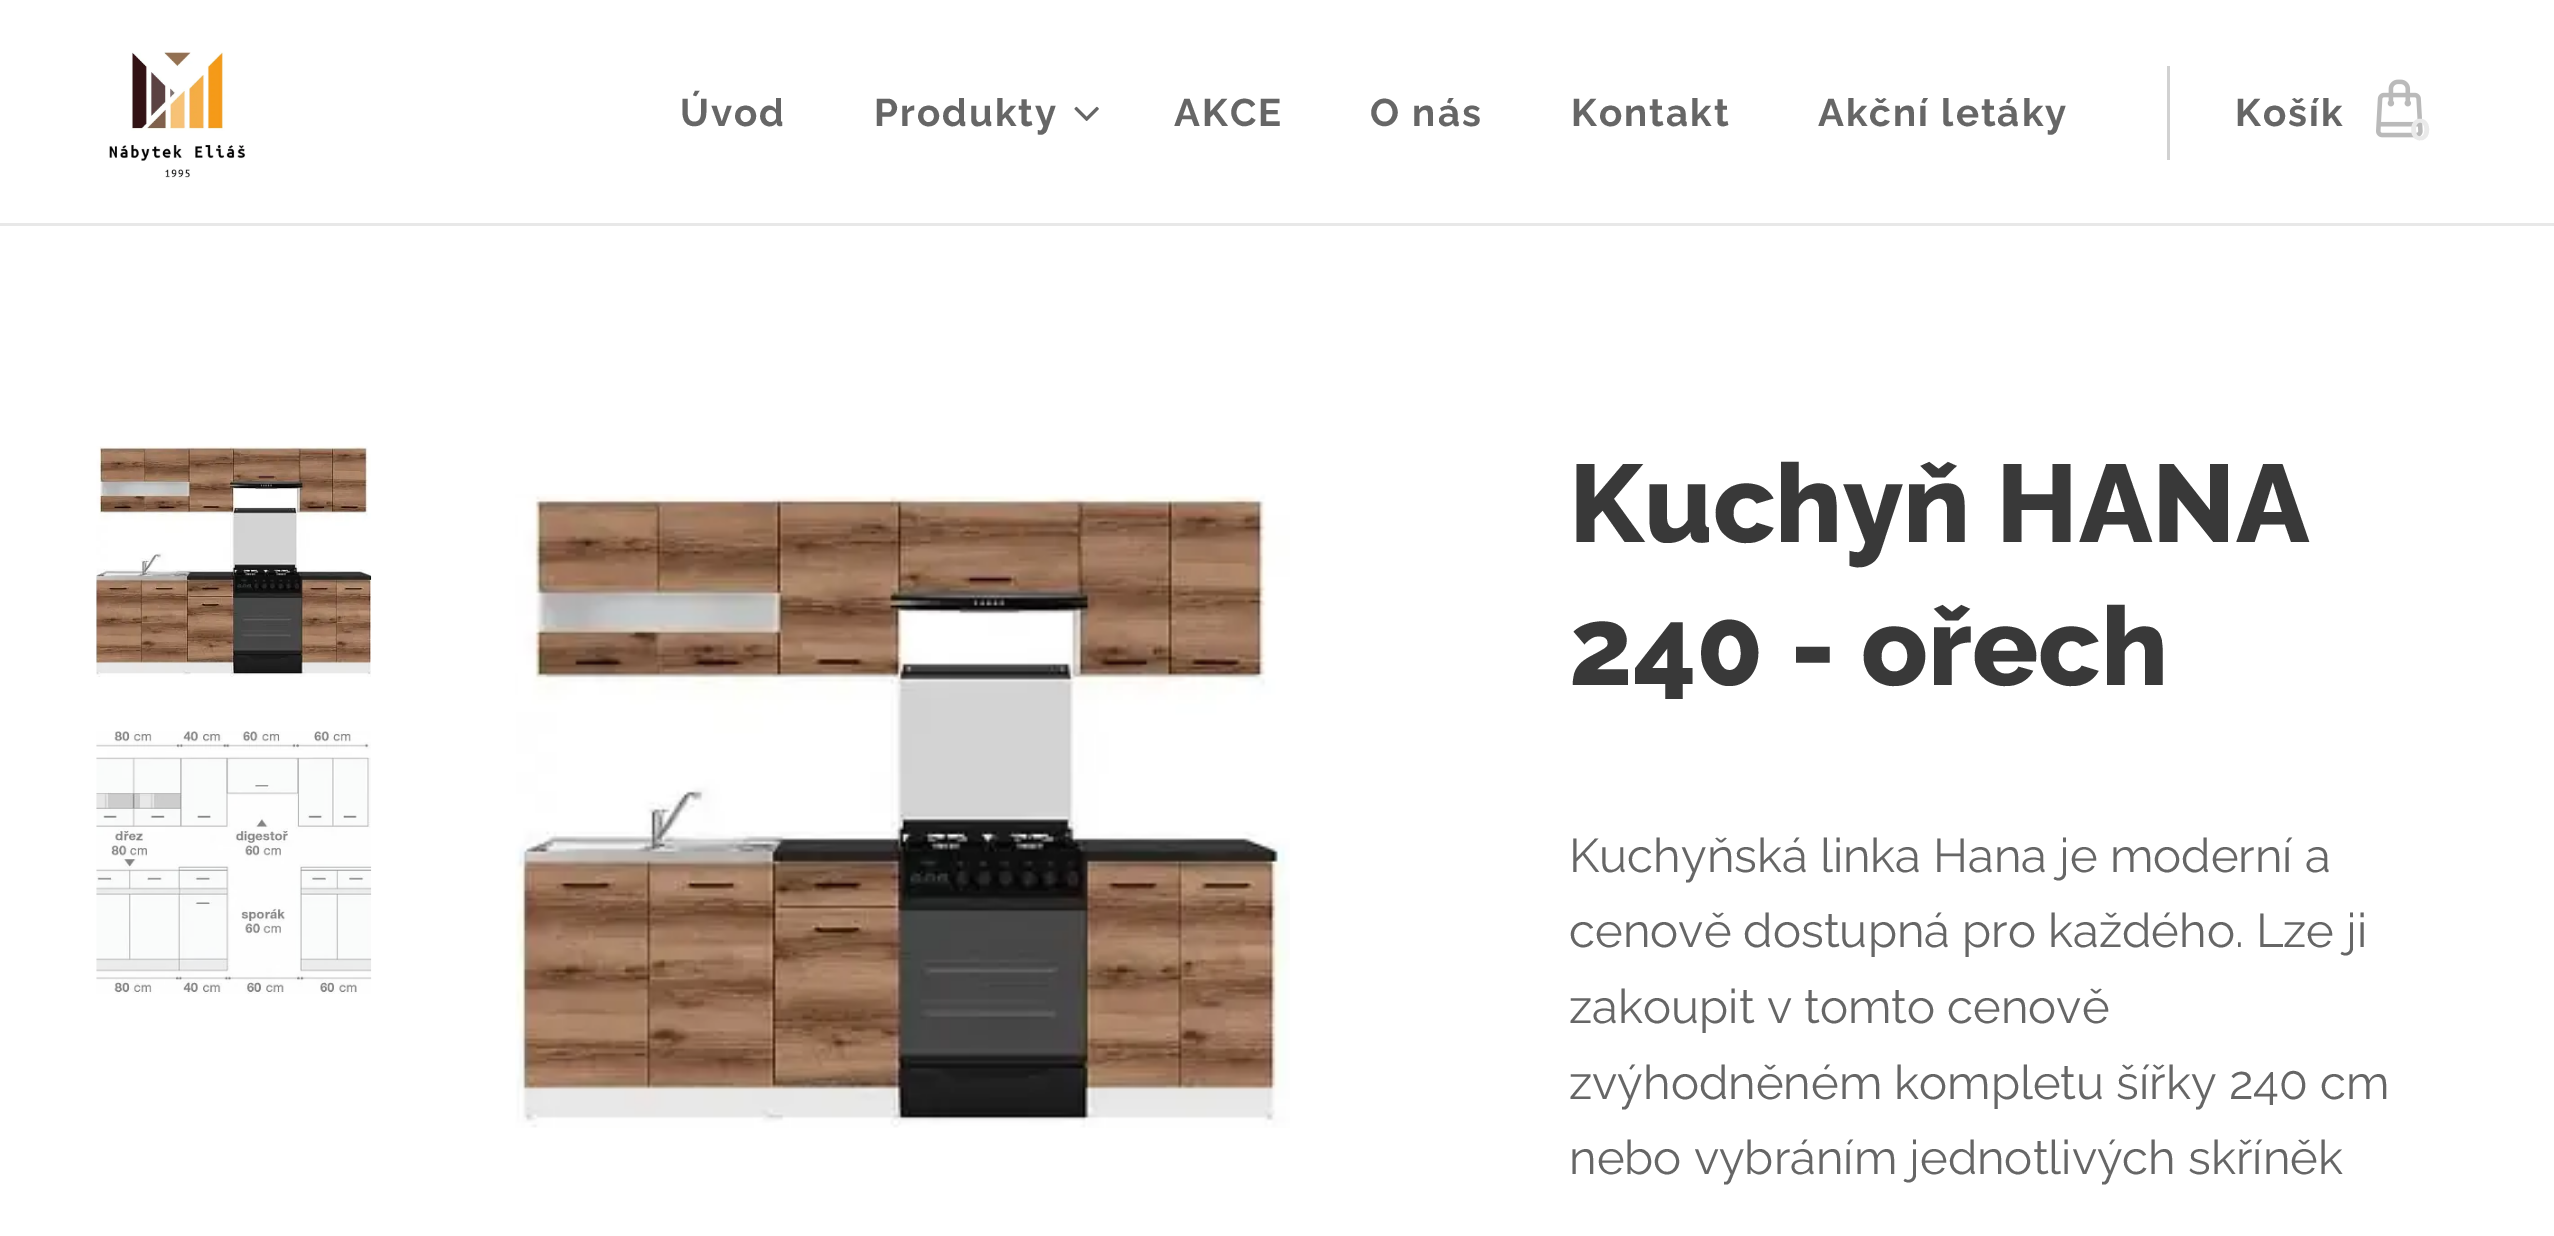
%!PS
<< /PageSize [2554 1236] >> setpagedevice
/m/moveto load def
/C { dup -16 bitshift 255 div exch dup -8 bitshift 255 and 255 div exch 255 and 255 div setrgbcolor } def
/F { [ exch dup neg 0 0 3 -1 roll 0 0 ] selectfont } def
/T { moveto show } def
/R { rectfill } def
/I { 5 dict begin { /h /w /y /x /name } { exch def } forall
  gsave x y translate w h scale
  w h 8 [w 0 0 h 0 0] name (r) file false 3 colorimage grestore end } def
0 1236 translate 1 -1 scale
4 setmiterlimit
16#FFFFFF C
0 0 2554 1236 R
(1.rgb) 109 51 137 127 I
/Raleway-Bold 38.5 F
16#666666 C
680 126 m 2 0 (Úvod) ashow
874 126 m 2 0 (Produkty) ashow
(2.rgb) 1074 106 25 15 I
1174 126 m 2 0 (AKCE) ashow
1370 126 m 2 0 (O nás) ashow
1571 126 m 2 0 (Kontakt) ashow
1818 126 m 2 0 (Akční letáky) ashow
16#D1D1D1 C
2167 66 3 94 R
16#666666 C
2235 126 m 2 0 (Košík) ashow
(3.rgb) 2376 79 47 59 I
/Montserrat-Bold 30 F
16#EAEAEA C
(0) 2410 140 T
16#E8E8E8 C
0 223 2554 3 R
(4.rgb) 96 446 276 231 I
(5.rgb) 96 731 276 263 I
(6.rgb) 515 494 775 634 I
/Raleway-ExtraBold 110 F
16#393939 C
(Kuchyň HANA) 1569 542 T
(240 - ořech) 1569 685 T
/Raleway-Regular 47.25 F
16#666666 C
(Kuchyňská linka Hana je moderní a) 1569 872 T
(cenově dostupná pro každého. Lze ji) 1569 947 T
(zakoupit v tomto cenově) 1569 1023 T
(zvýhodněném kompletu šířky 240 cm) 1569 1099 T
(nebo vybráním jednotlivých skříněk) 1569 1174 T
showpage
